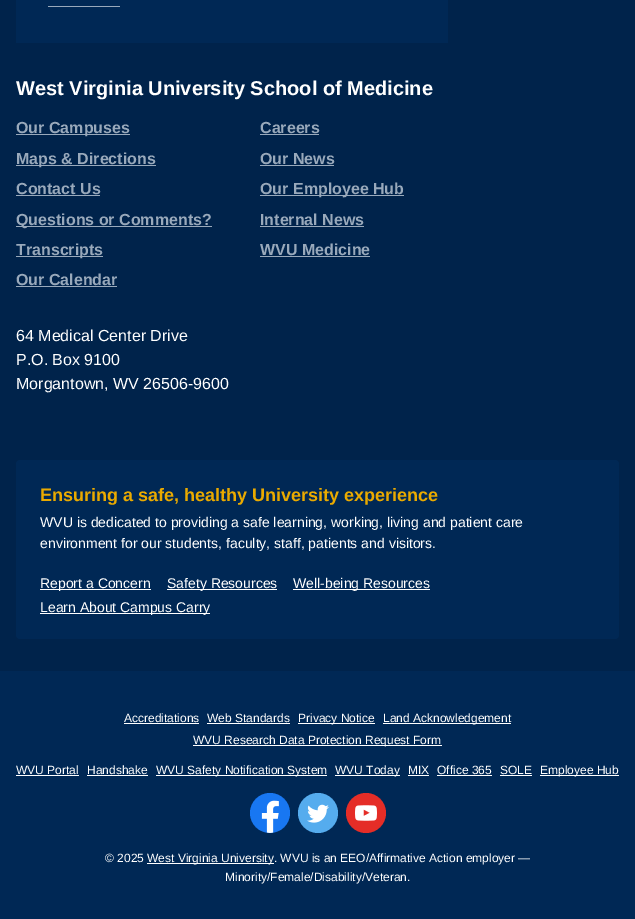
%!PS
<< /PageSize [635 919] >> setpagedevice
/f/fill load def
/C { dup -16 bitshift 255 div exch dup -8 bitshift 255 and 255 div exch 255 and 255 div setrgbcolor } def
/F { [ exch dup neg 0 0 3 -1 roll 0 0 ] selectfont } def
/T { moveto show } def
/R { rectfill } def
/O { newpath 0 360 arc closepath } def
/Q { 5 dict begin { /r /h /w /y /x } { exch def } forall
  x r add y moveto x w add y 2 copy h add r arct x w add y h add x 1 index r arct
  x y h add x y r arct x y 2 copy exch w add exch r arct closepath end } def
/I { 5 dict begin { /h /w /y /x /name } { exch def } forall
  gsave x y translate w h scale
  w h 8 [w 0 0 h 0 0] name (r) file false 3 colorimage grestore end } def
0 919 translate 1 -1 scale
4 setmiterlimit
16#00234B C
0 0 635 919 R
16#002855 C
16 0 432 43 R
16#99A9BB C
48 6 72 1 R
/LiberationSans-Bold 20 F
16#FFFFFF C
(West Virginia University School of Medicine) 16 95 T
16#99A9BB C
16 134 114 1 R
/LiberationSans-Bold 16 F
(Our Campuses) 16 133 T
(Careers) 260 133 T
260 134 59 1 R
16 165 140 1 R
(Maps & Directions) 16 164 T
(Our News) 260 164 T
260 165 74 1 R
(Contact Us) 16 194 T
16 195 84 1 R
260 195 144 1 R
(Our Employee Hub) 260 194 T
16 226 196 1 R
(Questions or Comments?) 16 225 T
(Internal News) 260 225 T
260 226 104 1 R
16 256 87 1 R
(Transcripts) 16 255 T
(WVU Medicine) 260 255 T
260 256 110 1 R
(Our Calendar) 16 285 T
16 286 101 1 R
/LiberationSans-Regular 16 F
16#FFFFFF C
(64 Medical Center Drive) 16 341 T
(P.O. Box 9100) 16 365 T
(Morgantown, WV 26506-9600) 16 389 T
16#002855 C
16 460 603 179 4 Q f
/LiberationSans-Bold 18 F
16#EAAA00 C
(Ensuring a safe, healthy University experience) 40 501 T
/LiberationSans-Regular 14 F
16#FFFFFF C
(WVU is dedicated to providing a safe learning, working, living and patient care) 40 527 T
(environment for our students, faculty, staff, patients and visitors.) 40 548 T
40 589 111 1 R
(Report a Concern) 40 588 T
167 589 110 1 R
(Safety Resources) 167 588 T
293 589 137 1 R
(Well-being Resources) 293 588 T
40 613 170 1 R
(Learn About Campus Carry) 40 612 T
16#002855 C
0 671 635 248 R
/LiberationSans-Regular 12 F
16#FFFFFF C
(Accreditations) 124 722 T
124 723 75 1 R
(Web Standards) 207 722 T
207 723 83 1 R
298 723 77 1 R
(Privacy Notice) 298 722 T
383 723 128 1 R
(Land Acknowledgement) 383 722 T
193 745 249 1 R
(WVU Research Data Protection Request Form) 193 744 T
(WVU Portal) 16 774 T
16 775 63 1 R
(Handshake) 87 774 T
87 775 61 1 R
156 775 171 1 R
(WVU Safety Notification System) 156 774 T
335 775 65 1 R
(WVU Today) 335 774 T
(MIX) 408 774 T
408 775 21 1 R
(Office 365) 437 774 T
437 775 55 1 R
(SOLE) 500 774 T
500 775 32 1 R
540 775 79 1 R
(Employee Hub) 540 774 T
16#1877F2 C
270 813 20 O f
(1.rgb) 261 800 18 33 I
16#55ACEE C
318 813 20 O f
(2.rgb) 307 804 22 19 I
16#E52D27 C
366 813 20 O f
(3.rgb) 355 805 22 16 I
16#FFFFFF C
(© 2025) 105 862 T
147 863 127 1 R
(West Virginia University. WVU is an EEO/Affirmative Action employer —) 147 862 T
(Minority/Female/Disability/Veteran.) 225 881 T
showpage
